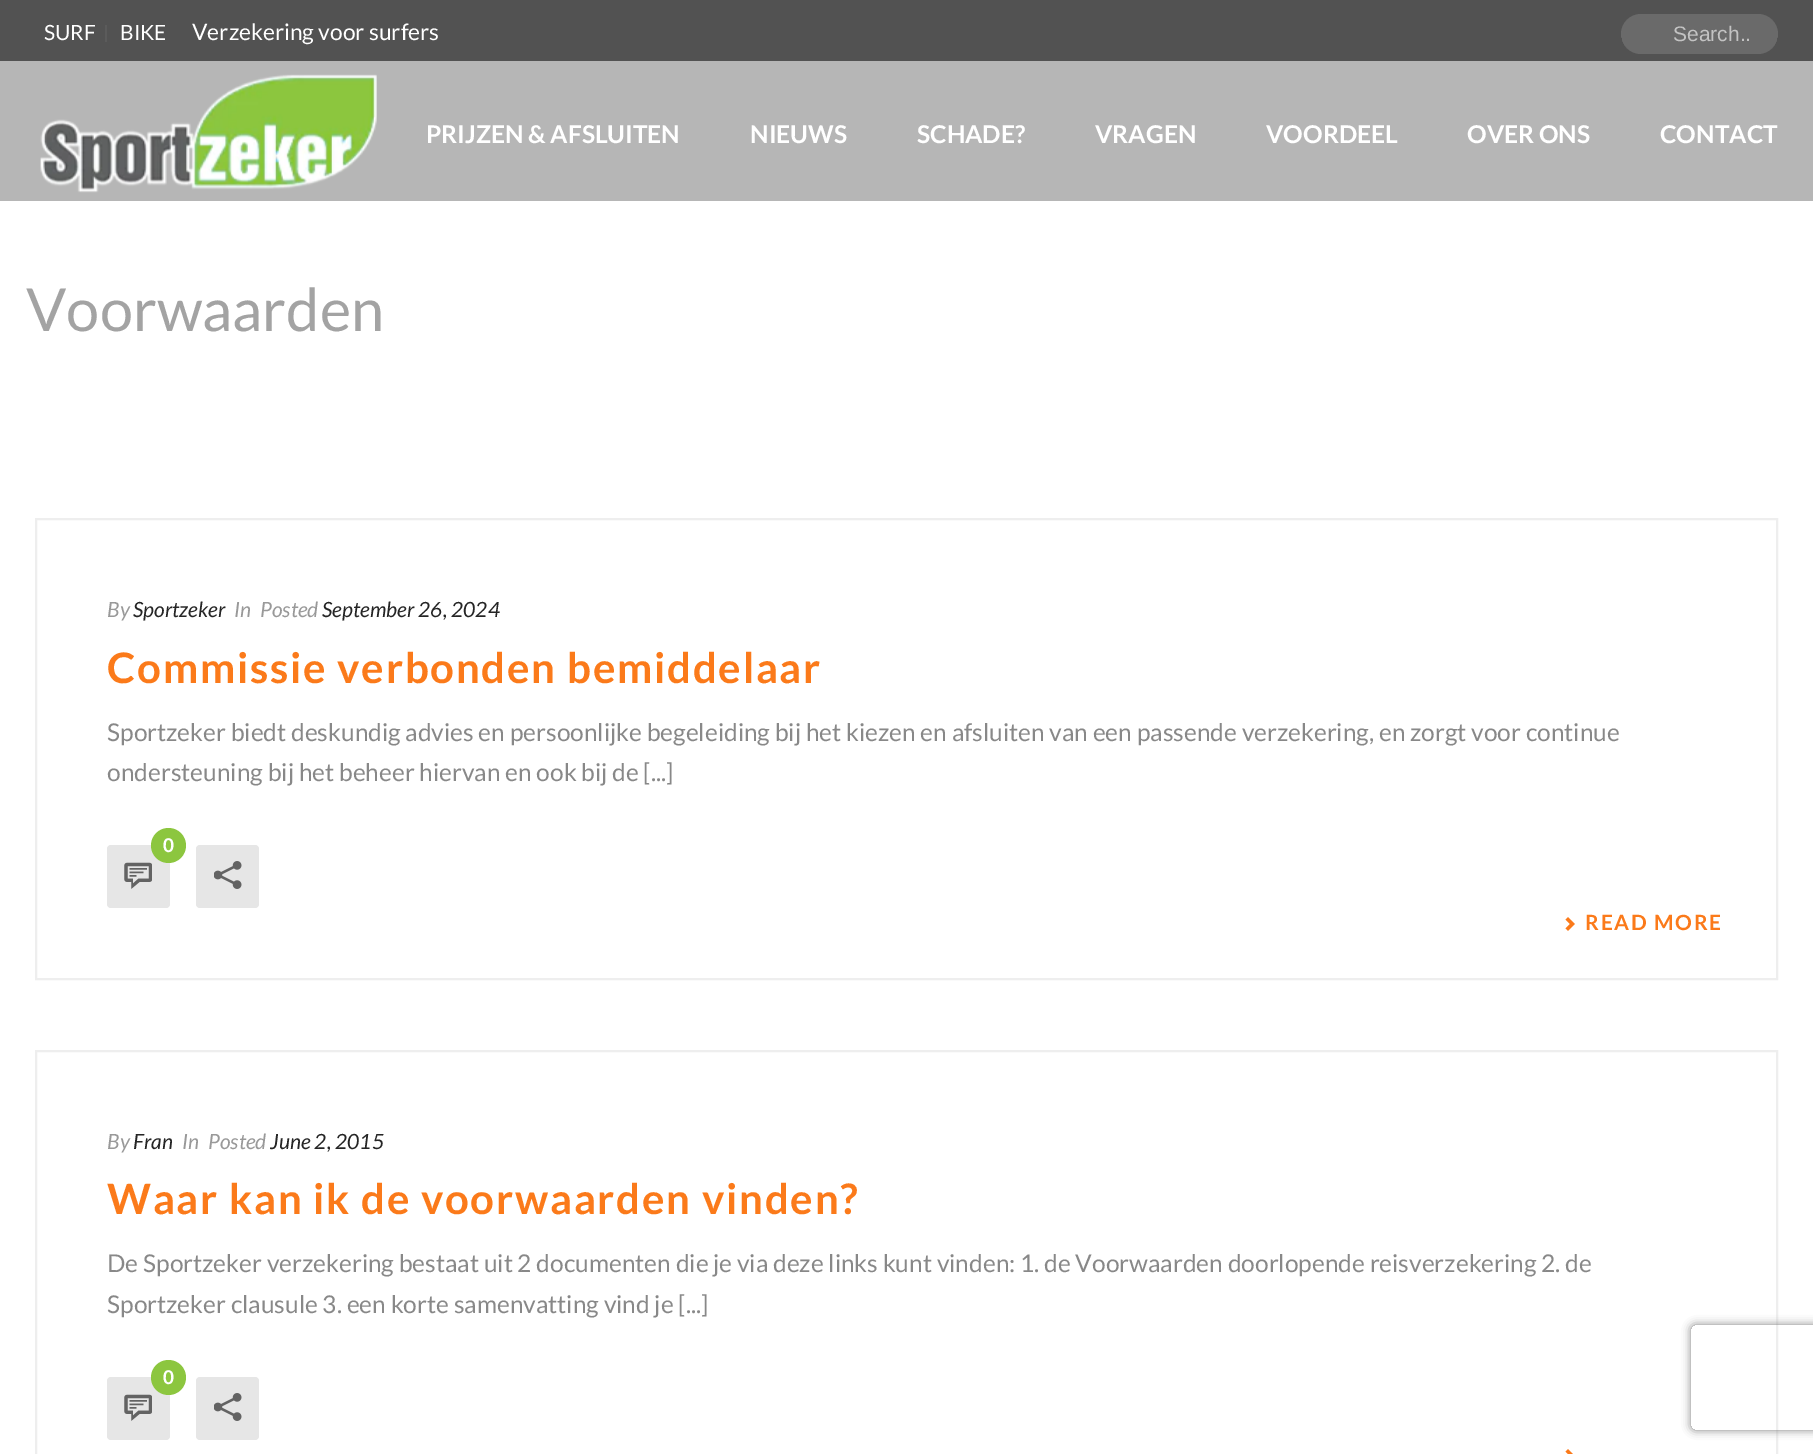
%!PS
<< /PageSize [1813 1454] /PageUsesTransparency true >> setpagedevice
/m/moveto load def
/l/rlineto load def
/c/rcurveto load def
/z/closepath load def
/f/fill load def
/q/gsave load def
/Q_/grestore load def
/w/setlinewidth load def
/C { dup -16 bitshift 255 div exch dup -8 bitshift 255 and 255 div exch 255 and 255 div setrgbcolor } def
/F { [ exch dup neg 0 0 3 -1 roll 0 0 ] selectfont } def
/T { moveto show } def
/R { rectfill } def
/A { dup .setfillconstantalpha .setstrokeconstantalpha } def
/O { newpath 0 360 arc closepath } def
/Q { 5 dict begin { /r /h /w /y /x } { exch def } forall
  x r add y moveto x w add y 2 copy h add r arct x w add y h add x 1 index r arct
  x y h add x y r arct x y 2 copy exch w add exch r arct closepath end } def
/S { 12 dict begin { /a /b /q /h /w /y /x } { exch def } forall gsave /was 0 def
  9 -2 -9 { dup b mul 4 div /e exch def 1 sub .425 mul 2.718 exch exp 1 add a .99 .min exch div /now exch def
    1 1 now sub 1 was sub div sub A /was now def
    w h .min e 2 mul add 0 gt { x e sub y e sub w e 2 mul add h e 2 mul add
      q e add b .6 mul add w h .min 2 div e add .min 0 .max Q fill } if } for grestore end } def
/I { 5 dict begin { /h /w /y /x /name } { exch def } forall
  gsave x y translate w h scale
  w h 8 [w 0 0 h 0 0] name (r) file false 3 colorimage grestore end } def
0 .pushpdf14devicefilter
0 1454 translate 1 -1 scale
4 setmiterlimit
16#FFFFFF C
0 0 1813 1454 R
16#525252 C
0 0 1813 61 R
16#5B5B5B C
105 25 2 17 R
/Lato-Regular 21 F
16#FFFFFF C
(SURF) 44 40 T
(BIKE) 120 40 T
/Lato-Regular 22.75 F
(Verzekering voor surfers) 192 40 T
q
1621 0 157 61 30.5 Q clip newpath
16#6A6A6A C
1621 14 157 40 20 Q f
Q_
/LiberationSans-Regular 21 F
16#C3C3C3 C
(Search..) 1673 41 T
16#B6B6B6 C
0 61 1813 140 R
(1.rgb) 40 74 337 119 I
/Lato-Bold 24.5 F
16#FFFFFF C
(PRIJZEN & AFSLUITEN) 426 143 T
(NIEUWS) 750 143 T
(SCHADE?) 917 143 T
(VRAGEN) 1095 143 T
(VOORDEEL) 1266 143 T
(OVER ONS) 1467 143 T
(CONTACT) 1660 143 T
/Lato-Regular 59.5 F
16#A3A3A3 C
(Voorwaarden) 26 331 T
16#EEEEEE C
2 w
36 519 1741 460 rectstroke
/Lato-Italic 21 F
16#999999 C
(By) 107 617 T
16#252525 C
(Sportzeker) 133 617 T
16#999999 C
(In) 234 617 T
(Posted) 260 617 T
16#252525 C
(September 26, 2024) 322 617 T
/Lato-Bold 42 F
16#FB7A1A C
107 683 m 1.75 0 (Commissie verbonden bemiddelaar) ashow
/Lato-Regular 24.5 F
16#888888 C
(Sportzeker biedt deskundig advies en persoonlijke begeleiding bij het kiezen en afsluiten van een passende verzekering, en zorgt voor continue) 107 741 T
(ondersteuning bij het beheer hiervan en ook bij de [...]) 107 781 T
16#E6E6E6 C
107 845 63 63 4 Q f
(2.rgb) 124 862 28 27 I
16#8CC63F C
168.5 845.5 17.5 O f
/Lato-Bold 19 F
16#FFFFFF C
(0) 163 852 T
16#E6E6E6 C
196 845 63 63 4 Q f
(3.rgb) 214 861 28 28 I
(4.rgb) 1565 917 10 14 I
/Lato-Bold 21 F
16#FB7A1A C
1585 930 m 1.75 0 (READ MORE) ashow
16#EEEEEE C
36 1051 1741 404 rectstroke
/Lato-Italic 21 F
16#999999 C
(By) 107 1149 T
16#252525 C
(Fran) 133 1149 T
16#999999 C
(In) 182 1149 T
(Posted) 208 1149 T
16#252525 C
(June 2, 2015) 270 1149 T
/Lato-Bold 42 F
16#FB7A1A C
107 1214 m 1.75 0 (Waar kan ik de voorwaarden vinden?) ashow
/Lato-Regular 24.5 F
16#888888 C
(De Sportzeker verzekering bestaat uit 2 documenten die je via deze links kunt vinden: 1. de Voorwaarden doorlopende reisverzekering 2. de) 107 1272 T
(Sportzeker clausule 3. een korte samenvatting vind je [...]) 107 1313 T
16#E6E6E6 C
107 1377 63 63 4 Q f
(2.rgb) 124 1394 28 27 I
16#8CC63F C
168.5 1377.5 17.5 O f
/Lato-Bold 19 F
16#FFFFFF C
(0) 163 1384 T
16#E6E6E6 C
196 1377 63 63 4 Q f
(3.rgb) 214 1393 28 28 I
(5.rgb) 1565 1449 8 5 I
q
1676 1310 m 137 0 l 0 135 l -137 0 l z 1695 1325 m 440 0 l 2 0 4 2 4 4 c 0 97 l 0 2 -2 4 -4 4 c -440 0 l -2 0 -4 -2 -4 -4 c 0 -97 l 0 -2 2 -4 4 -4 c z eoclip newpath
16#808080 C
1691 1325 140 105 4 4.5 1 S
Q_
.poppdf14devicefilter showpage
